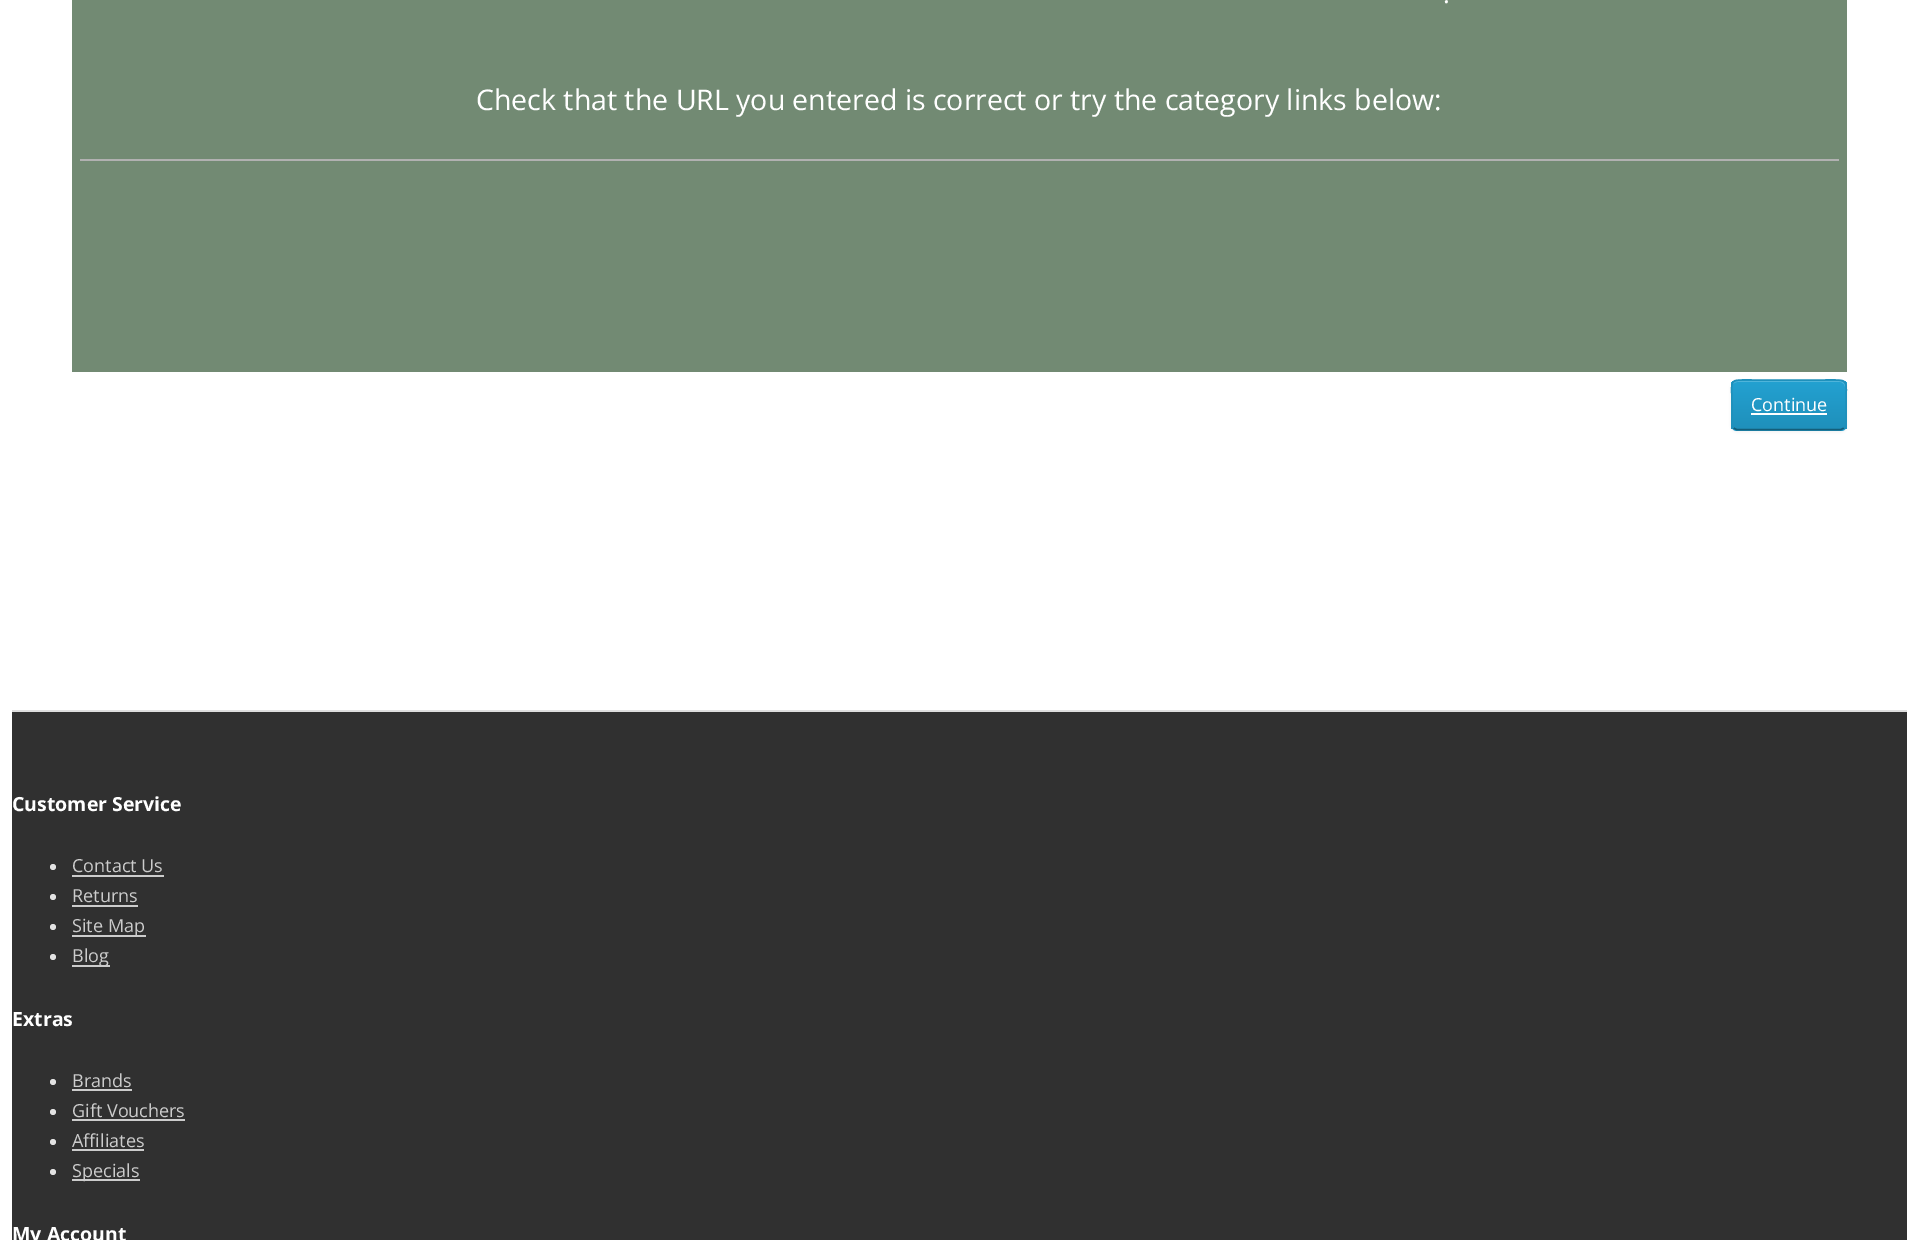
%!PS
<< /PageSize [1918 1240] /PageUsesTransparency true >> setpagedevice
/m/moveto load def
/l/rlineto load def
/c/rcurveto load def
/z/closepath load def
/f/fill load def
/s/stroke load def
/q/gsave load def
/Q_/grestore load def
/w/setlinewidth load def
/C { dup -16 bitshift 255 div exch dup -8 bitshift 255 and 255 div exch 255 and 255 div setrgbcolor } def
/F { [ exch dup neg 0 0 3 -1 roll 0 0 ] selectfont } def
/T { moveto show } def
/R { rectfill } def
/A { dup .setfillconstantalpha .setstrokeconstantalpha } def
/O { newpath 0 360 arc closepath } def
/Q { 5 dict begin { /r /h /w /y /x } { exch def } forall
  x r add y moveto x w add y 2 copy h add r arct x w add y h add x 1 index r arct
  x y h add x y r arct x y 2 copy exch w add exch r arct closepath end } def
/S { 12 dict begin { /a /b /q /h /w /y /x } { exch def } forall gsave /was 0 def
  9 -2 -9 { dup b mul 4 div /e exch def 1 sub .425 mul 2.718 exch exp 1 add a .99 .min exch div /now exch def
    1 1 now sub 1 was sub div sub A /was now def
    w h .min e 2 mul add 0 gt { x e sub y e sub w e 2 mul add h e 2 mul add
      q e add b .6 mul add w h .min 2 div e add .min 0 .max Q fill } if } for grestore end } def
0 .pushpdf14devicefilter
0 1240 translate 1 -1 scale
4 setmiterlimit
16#FFFFFF C
0 0 1918 1240 R
16#728A73 C
72 0 1775 372 R
/OpenSans-Regular 26 F
16#FFFFFF C
(.) 1443 3 T
16#B1B1B1 C
80 159 1759 2 R
/OpenSans-Regular 28.5 F
16#FFFFFF C
(Check that the URL you entered is correct or try the category links below:) 476 110 T
16#000000 C
1731 381 116 51 6 1.5 .05 S
16#229AC8 C
1731 380 116 51 6 Q f
q
1731 380 116 51 6 Q clip newpath
q 1731 381 m 116 0 l 0 48 l -116 0 l z clip newpath
<< /ShadingType 2 /ColorSpace /DeviceRGB /Coords [1789 381 1789 429] /Extend [true true] /Function << /FunctionType 2 /Domain [0 1] /C0 [.137 .631 .82] /C1 [.122 .565 .733] /N 1 >> >> shfill Q_
Q_
16#4FB4DA C
1737 382 m 103 0 l 3 0 5 3 5 5 c 0 -1 l 0 -3 -2 -5 -5 -5 c -102 0 l -2 0 -4 1 -5 3 c 1 -1 3 -2 4 -2 c z f
16#145E7A C
1.5 w
1844 428 m -3 1.5 l -104.5 0 l -3 -1.5 l s
16#1F90BB C
1733.5 428 m -2.5 -2.5 -1.5 -7 -1.5 -10 c 0 -13 l 0 -27.5 -5 -25 22 -25 c 69 0 l 27.5 0 23 -2.5 23 25 c 0 13 l 0 3 .5 7.5 -2 10 c s
/OpenSans-Regular 18 F
16#FFFFFF C
(Continue) 1751 411 T
1751 413 76 2 R
16#303030 C
12 712 1895 528 R
16#DDDDDD C
12 710 1895 2 R
/OpenSans-Bold 19.5 F
16#FFFFFF C
(Customer Service) 12 811 T
16#E2E2E2 C
53 867 3 O f
/OpenSans-Regular 18 F
16#CCCCCC C
(Contact Us) 72 872 T
72 875 92 2 R
16#E2E2E2 C
53 897 3 O f
16#CCCCCC C
(Returns) 72 902 T
72 905 66 2 R
16#E2E2E2 C
53 927 3 O f
16#CCCCCC C
72 935 74 2 R
(Site Map) 72 932 T
16#E2E2E2 C
53 957 3 O f
16#CCCCCC C
72 965 38 2 R
(Blog) 72 962 T
/OpenSans-Bold 19.5 F
16#FFFFFF C
(Extras) 12 1026 T
16#E2E2E2 C
53 1082 3 O f
/OpenSans-Regular 18 F
16#CCCCCC C
(Brands) 72 1087 T
72 1089 60 2 R
16#E2E2E2 C
53 1112 3 O f
16#CCCCCC C
(Gift Vouchers) 72 1117 T
72 1119 113 2 R
16#E2E2E2 C
53 1142 3 O f
16#CCCCCC C
(Affiliates) 72 1147 T
72 1149 72 2 R
16#E2E2E2 C
53 1172 3 O f
16#CCCCCC C
72 1179 68 2 R
(Specials) 72 1177 T
/OpenSans-Bold 19.5 F
16#FFFFFF C
(My Account) 12 1241 T
.poppdf14devicefilter showpage
